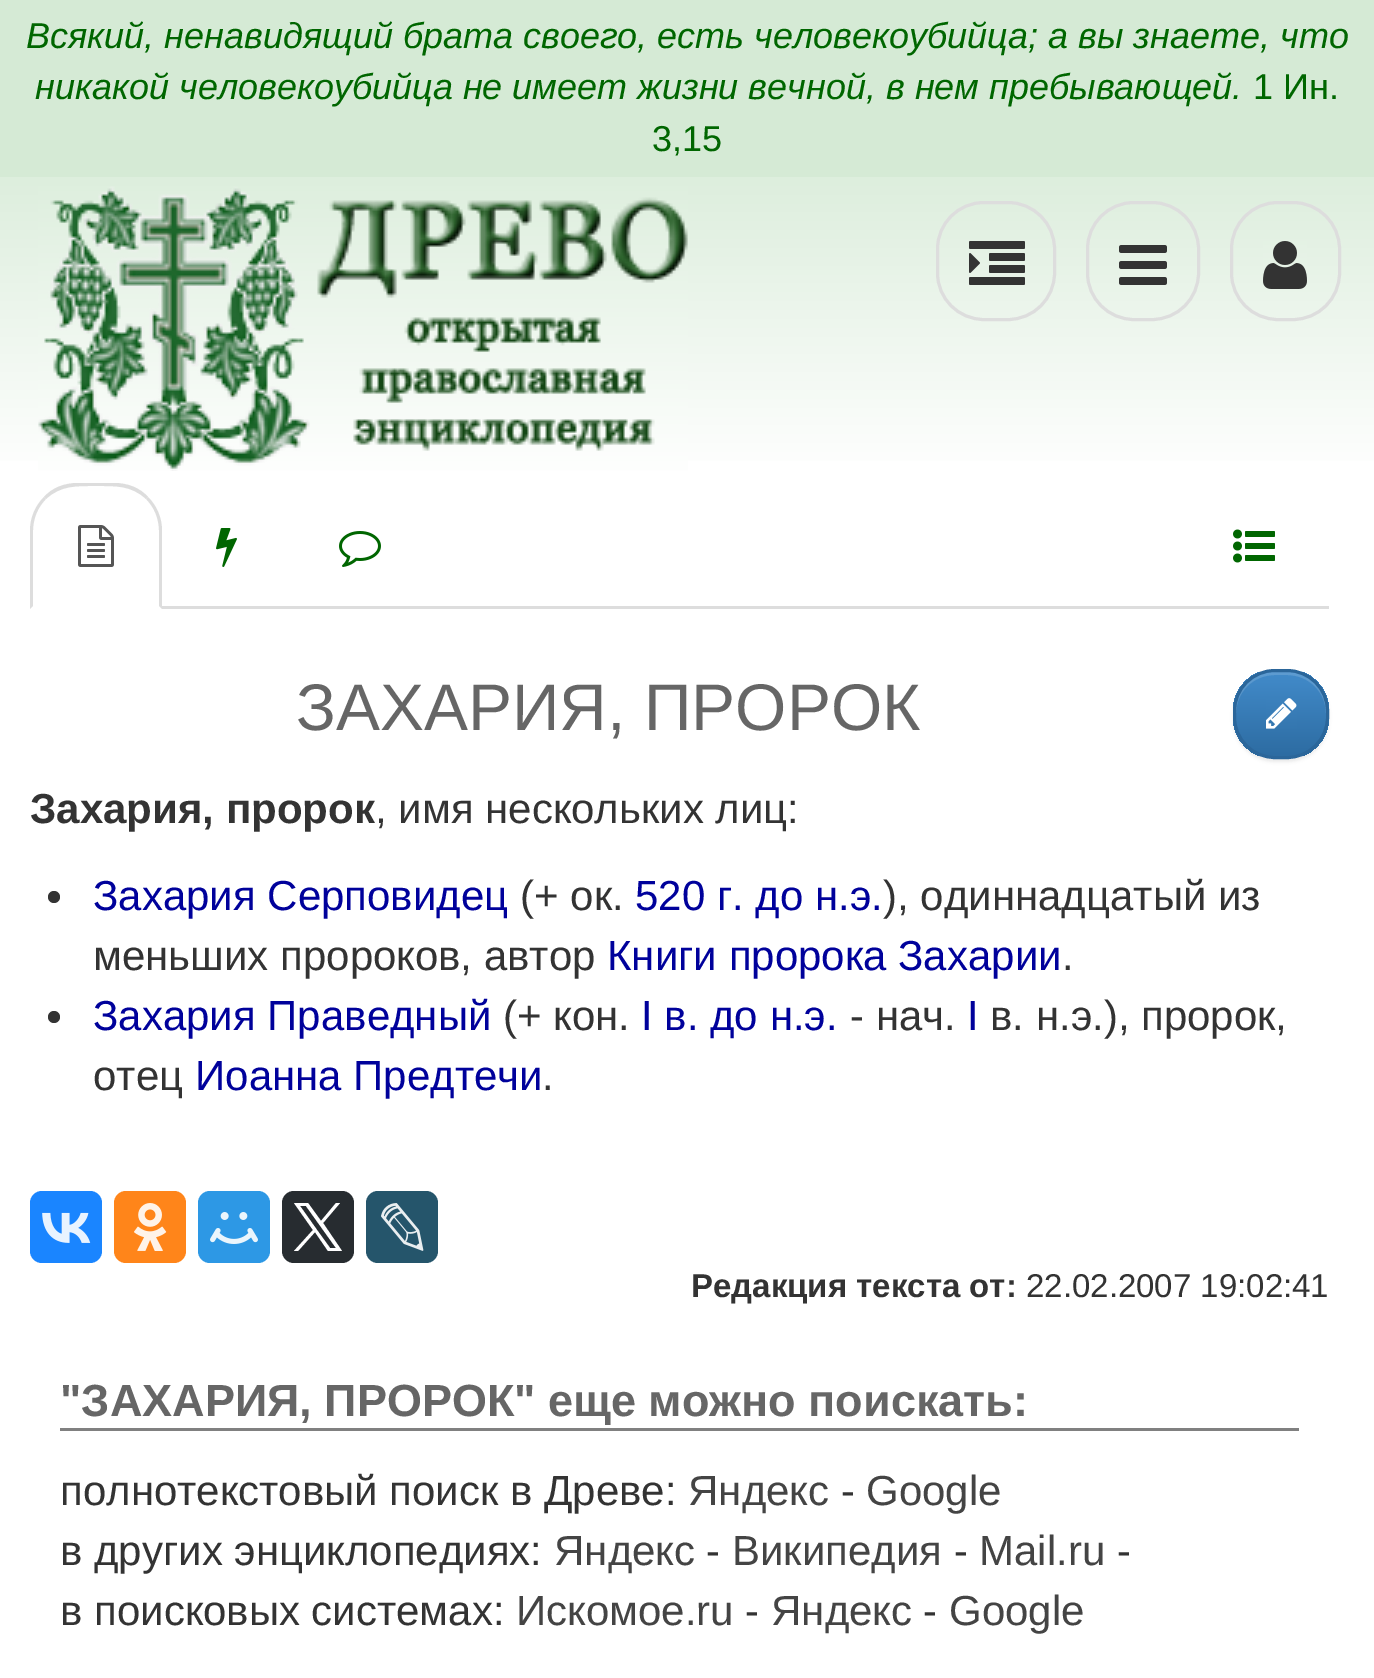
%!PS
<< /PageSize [1374 1678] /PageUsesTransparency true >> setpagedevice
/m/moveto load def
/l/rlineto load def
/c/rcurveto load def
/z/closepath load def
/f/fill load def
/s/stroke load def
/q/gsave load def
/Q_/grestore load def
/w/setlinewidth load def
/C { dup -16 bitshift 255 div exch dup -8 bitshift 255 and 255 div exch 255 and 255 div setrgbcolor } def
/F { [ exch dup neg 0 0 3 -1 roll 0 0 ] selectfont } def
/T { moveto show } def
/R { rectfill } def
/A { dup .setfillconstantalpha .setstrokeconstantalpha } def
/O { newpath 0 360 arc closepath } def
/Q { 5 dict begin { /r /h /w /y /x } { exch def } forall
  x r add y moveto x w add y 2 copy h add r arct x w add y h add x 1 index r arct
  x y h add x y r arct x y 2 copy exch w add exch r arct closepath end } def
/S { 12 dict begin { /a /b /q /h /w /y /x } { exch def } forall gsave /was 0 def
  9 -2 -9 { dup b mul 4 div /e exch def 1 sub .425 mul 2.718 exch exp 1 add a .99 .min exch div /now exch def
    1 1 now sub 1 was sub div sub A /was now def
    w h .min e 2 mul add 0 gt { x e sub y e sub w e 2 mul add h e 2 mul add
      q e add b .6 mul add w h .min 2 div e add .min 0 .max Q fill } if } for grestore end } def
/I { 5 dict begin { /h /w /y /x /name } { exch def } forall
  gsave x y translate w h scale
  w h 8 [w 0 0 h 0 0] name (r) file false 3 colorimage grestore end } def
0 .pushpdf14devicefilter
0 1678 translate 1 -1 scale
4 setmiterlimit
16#FFFFFF C
0 0 1374 1678 R
16#D5EAD5 C
0 0 1374 177 R
/LiberationSans-Italic 36 F
16#006600 C
(Всякий, ненавидящий брата своего, есть человекоубийца; а вы знаете, что) 26 48 T
(никакой человекоубийца не имеет жизни вечной, в нем пребывающей.) 35 99 T
/LiberationSans-Regular 36 F
(1 Ин.) 1253 99 T
(3,15) 652 151 T
q 0 177 m 1374 0 l 0 284 l -1374 0 l z clip newpath
<< /ShadingType 2 /ColorSpace /DeviceRGB /Coords [687 177 687 483] /Extend [true true] /Function << /FunctionType 2 /Domain [0 1] /C0 [.867 .933 .867] /C1 [1 1 1] /N 1 >> >> shfill Q_
(1.rgb) 38 186 650 285 I
16#DDDDDD C
3 w
937.5 202.5 117 117 46.5 Q s
(2.rgb) 969 241 56 44 I
1087.5 202.5 111 117 46.5 Q s
(3.rgb) 1119 245 48 40 I
1231.5 202.5 108 117 46.5 Q s
(4.rgb) 1263 241 44 48 I
162 606 1167 3 R
78 483 m -14 0 -26 5 -34 14 c 2 2 l 15 -14 31 -13 50 -13 c 19 0 35 -1 50 13 c 2 -2 l -8 -9 -20 -14 -34 -14 c z f
162 609 m 0 -78 l 0 -13 -5 -25 -14 -34 c -2 2 l 8 8 13 19 13 32 c 0 75 l z f
30 609 m 3 -3 l 0 -75 l 0 -13 5 -24 13 -32 c -2 -2 l -9 9 -14 21 -14 34 c z f
(5.rgb) 78 525 36 42 I
(6.rgb) 216 528 21 39 I
(7.rgb) 339 531 42 36 I
(8.rgb) 1233 529 42 34 I
/LiberationSans-Regular 66 F
16#666666 C
(ЗАХАРИЯ, ПРОРОК) 296 730 T
16#000000 C
1233 672 96 90 42 1.5 .07 S
q
1233 669 96 90 42 Q clip newpath
q 1233 672 m 96 0 l 0 84 l -96 0 l z clip newpath
<< /ShadingType 2 /ColorSpace /DeviceRGB /Coords [1281 672 1281 756] /Extend [true true] /Function << /FunctionType 2 /Domain [0 1] /C0 [.259 .545 .792] /C1 [.176 .424 .635] /N 1 >> >> shfill Q_
Q_
0.15 A
16#FFFFFF C
1275 675 m 12 0 l 22 0 39 17 39 39 c 0 -3 l 0 -22 -17 -39 -39 -39 c -12 0 l -22 0 -39 17 -39 39 c 0 3 l 0 -22 17 -39 39 -39 c z f
1 A
16#2B669A C
1234.5 670.5 93 87 40.5 Q s
(9.rgb) 1266 698 31 31 I
/LiberationSans-Bold 42 F
16#333333 C
(Захария, пророк) 30 823 T
/LiberationSans-Regular 42 F
(, имя нескольких лиц:) 375 823 T
54 897 6 O f
16#00019B C
(Захария Серповидец) 93 910 T
16#333333 C
(\(+ ок.) 520 910 T
16#00019B C
(520 г. до н.э.) 635 910 T
16#333333 C
(\), одиннадцатый из) 883 910 T
(меньших пророков, автор) 93 970 T
16#00019B C
(Книги пророка Захарии) 607 970 T
16#333333 C
(.) 1062 970 T
54 1017 6 O f
16#00019B C
(Захария Праведный) 93 1030 T
16#333333 C
(\(+ кон.) 503 1030 T
16#00019B C
(I в. до н.э.) 641 1030 T
16#333333 C
(- нач.) 850 1030 T
16#00019B C
(I) 967 1030 T
16#333333 C
(в. н.э.\), пророк,) 990 1030 T
(отец) 93 1090 T
16#00019B C
(Иоанна Предтечи) 195 1090 T
16#333333 C
(.) 542 1090 T
16#1A85FF C
30 1191 72 72 12 Q f
(10.rgb) 42 1212 49 31 I
16#FF851A C
114 1191 72 72 12 Q f
(11.rgb) 134 1203 33 48 I
16#2D98E5 C
198 1191 72 72 12 Q f
(12.rgb) 210 1212 48 32 I
16#272C30 C
282 1191 72 72 12 Q f
16#FFFFFF C
323 1223 m 17 -20 l -4 0 l -15 18 l -13 -18 l -14 0 l 19 27 l -19 21 l 4 0 l 17 -19 l 13 19 l 14 0 l z 317 1230 m -17 -24 l 6 0 l 30 42 l -6 0 l z f
16#25556B C
366 1191 72 72 12 Q f
(13.rgb) 381 1203 43 48 I
/LiberationSans-Bold 33 F
16#333333 C
(Редакция текста от:) 691 1297 T
/LiberationSans-Regular 33 F
(22.02.2007 19:02:41) 1026 1297 T
16#808080 C
60 1428 1239 3 R
/LiberationSans-Bold 45 F
16#666666 C
("ЗАХАРИЯ, ПРОРОК" еще можно поискать:) 60 1416 T
/LiberationSans-Regular 42 F
16#333333 C
(полнотекстовый поиск в Древе:) 60 1505 T
16#444444 C
(Яндекс) 688 1505 T
16#333333 C
(-) 841 1505 T
16#444444 C
(Google) 866 1505 T
16#333333 C
(в других энциклопедиях:) 60 1565 T
16#444444 C
(Яндекс) 554 1565 T
16#333333 C
(-) 706 1565 T
16#444444 C
(Википедия) 732 1565 T
16#333333 C
(-) 954 1565 T
16#444444 C
(Mail.ru) 979 1565 T
16#333333 C
(-) 1117 1565 T
(в поисковых системах:) 60 1625 T
16#444444 C
(Искомое.ru) 516 1625 T
16#333333 C
(-) 745 1625 T
16#444444 C
(Яндекс) 771 1625 T
16#333333 C
(-) 923 1625 T
16#444444 C
(Google) 949 1625 T
.poppdf14devicefilter showpage
